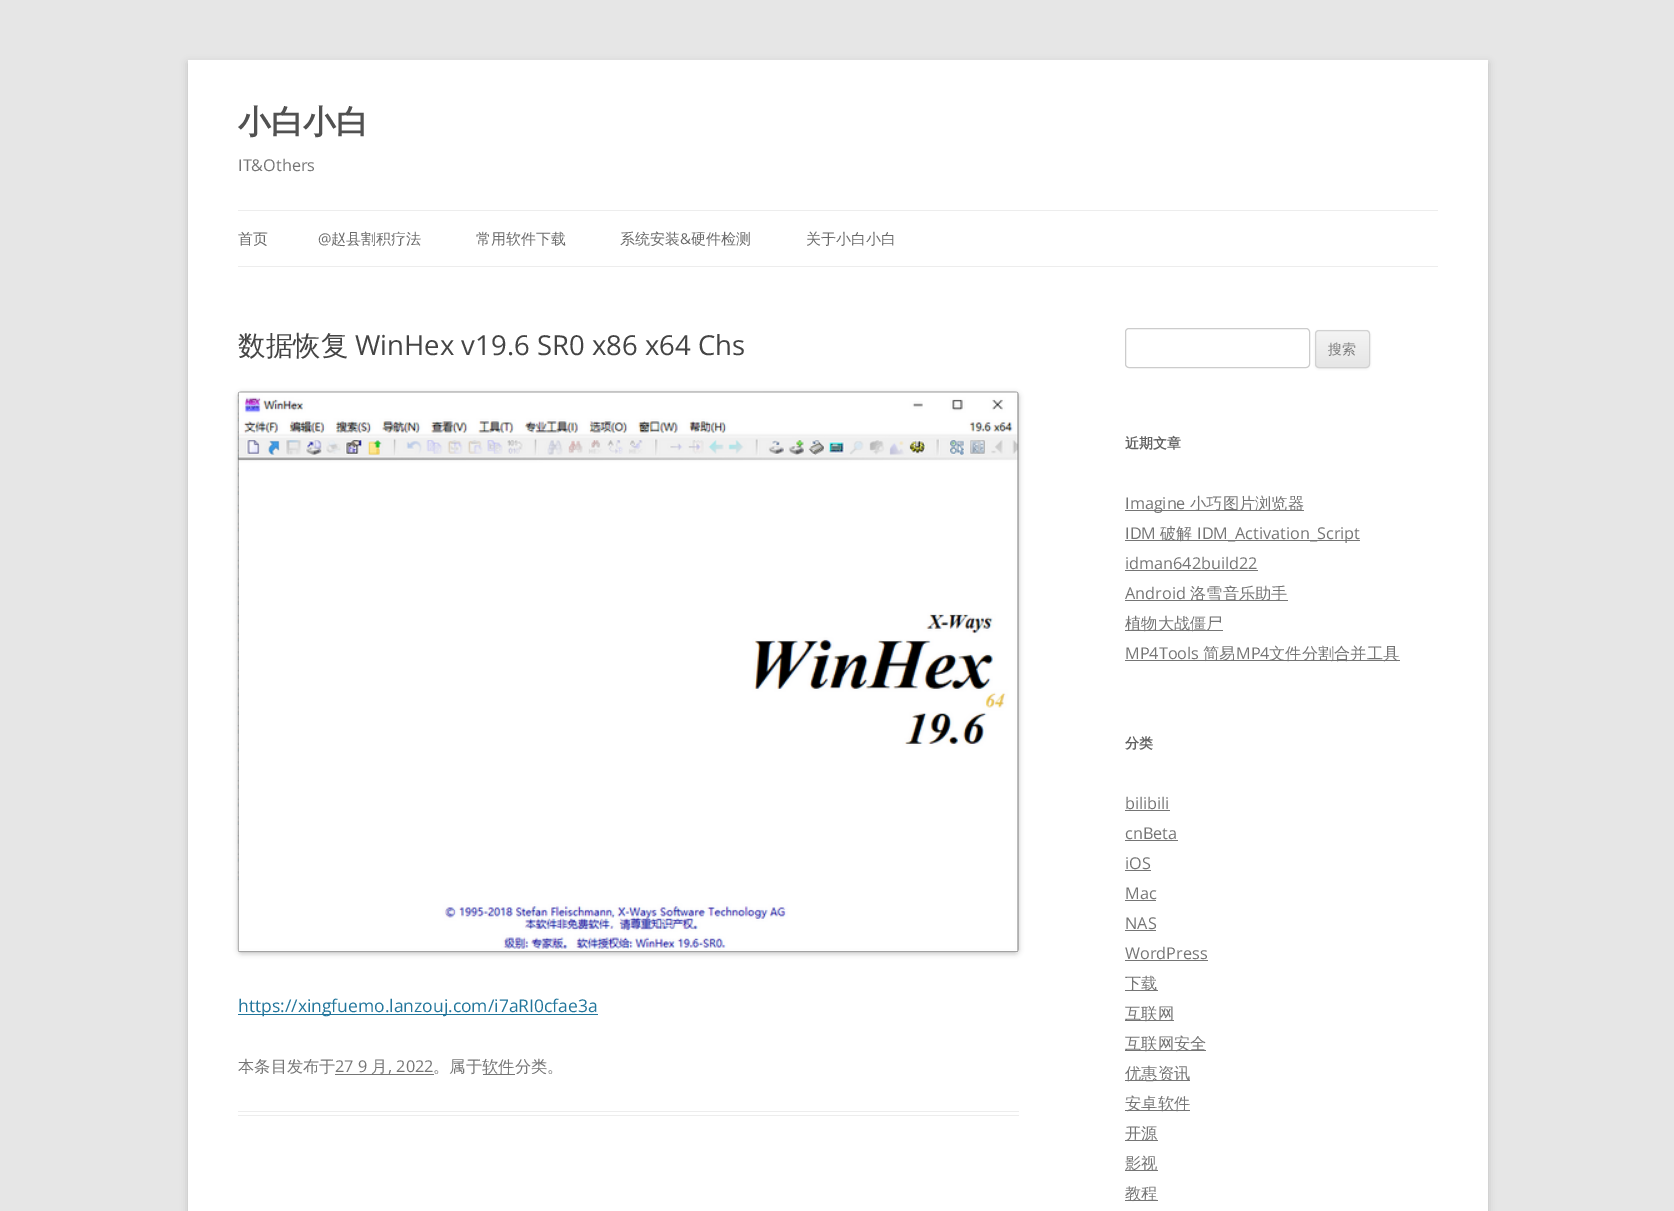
%!PS
<< /PageSize [1674 1211] /PageUsesTransparency true >> setpagedevice
/m/moveto load def
/l/rlineto load def
/z/closepath load def
/f/fill load def
/s/stroke load def
/q/gsave load def
/Q_/grestore load def
/C { dup -16 bitshift 255 div exch dup -8 bitshift 255 and 255 div exch 255 and 255 div setrgbcolor } def
/F { [ exch dup neg 0 0 3 -1 roll 0 0 ] selectfont } def
/T { moveto show } def
/R { rectfill } def
/A { dup .setfillconstantalpha .setstrokeconstantalpha } def
/Q { 5 dict begin { /r /h /w /y /x } { exch def } forall
  x r add y moveto x w add y 2 copy h add r arct x w add y h add x 1 index r arct
  x y h add x y r arct x y 2 copy exch w add exch r arct closepath end } def
/S { 12 dict begin { /a /b /q /h /w /y /x } { exch def } forall gsave /was 0 def
  9 -2 -9 { dup b mul 4 div /e exch def 1 sub .425 mul 2.718 exch exp 1 add a .99 .min exch div /now exch def
    1 1 now sub 1 was sub div sub A /was now def
    w h .min e 2 mul add 0 gt { x e sub y e sub w e 2 mul add h e 2 mul add
      q e add b .6 mul add w h .min 2 div e add .min 0 .max Q fill } if } for grestore end } def
/I { 5 dict begin { /h /w /y /x /name } { exch def } forall
  gsave x y translate w h scale
  w h 8 [w 0 0 h 0 0] name (r) file false 3 colorimage grestore end } def
0 .pushpdf14devicefilter
0 1211 translate 1 -1 scale
4 setmiterlimit
16#E6E6E6 C
0 0 1674 1211 R
16#646464 C
188 63 1300 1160 0 4 .3 S
16#FFFFFF C
188 60 1300 1151 R
/WenQuanYiZenHei-Bold 32.5 F
16#515151 C
(小白小白) 238 133 T
/OpenSans-Regular 16.25 F
16#757575 C
(IT&Others) 238 171 T
16#EDEDED C
238 210 1200 1 R
238 266 1200 1 R
/WenQuanYiZenHei-Medium 15 F
16#6A6A6A C
(首页) 238 244 T
/OpenSans-Regular 15 F
(@) 318 244 T
/WenQuanYiZenHei-Medium 15 F
(赵县割积疗法) 331 244 T
(常用软件下载) 476 244 T
(系统安装) 620 244 T
/OpenSans-Regular 15 F
(&) 680 244 T
/WenQuanYiZenHei-Medium 15 F
(硬件检测) 691 244 T
(关于小白小白) 806 244 T
16#EDEDED C
238 1111 781 1 R
238 1115 781 1 R
/WenQuanYiZenHei-Medium 27.5 F
16#444444 C
(数据恢复) 238 355 T
/OpenSans-Regular 27.5 F
(WinHex v19.6 SR0 x86 x64 Chs) 355 355 T
16#000000 C
238 393 781 561 4 2.5 .2 S
(1.rgb) 237 391 782 562 I
16#21759B C
238 1014 360 1 R
/OpenSans-Regular 17.5 F
(https://xingfuemo.lanzouj.com/i7aRI0cfae3a) 238 1012 T
/WenQuanYiZenHei-Medium 16.25 F
16#757575 C
(本条目发布于) 238 1072 T
/OpenSans-Regular 16.25 F
(27 9) 335 1072 T
335 1074 99 1 R
/WenQuanYiZenHei-Medium 16.25 F
(月) 371 1072 T
/OpenSans-Regular 16.25 F
(, 2022) 388 1072 T
/WenQuanYiZenHei-Medium 16.25 F
(。属于) 433 1072 T
483 1074 32 1 R
(软件分类。) 482 1072 T
16#CCCCCC C
1125.5 328.5 184 39 3.5 Q s
16#404040 C
1315 331 55 38 4 1 .1 S
16#E6E6E6 C
1315 330 55 38 4 Q f
q
1315 330 55 38 4 Q clip newpath
q 1315 331 m 55 0 l 0 35 l -55 0 l z clip newpath
<< /ShadingType 2 /ColorSpace /DeviceRGB /Coords [1343 331 1343 366] /Extend [true true] /Function << /FunctionType 2 /Domain [0 1] /C0 [.957 .957 .957] /C1 [.902 .902 .902] /N 1 >> >> shfill Q_
Q_
16#D2D2D2 C
1315.5 330.5 54 37 3.5 Q s
/WenQuanYiZenHei-Medium 14 F
16#7C7C7C C
(搜索) 1328 354 T
/WenQuanYiZenHei-Bold 14 F
16#636363 C
(近期文章) 1125 448 T
16#757575 C
1125 510 179 1 R
/OpenSans-Regular 16.25 F
(Imagine) 1125 509 T
/WenQuanYiZenHei-Medium 16.25 F
(小巧图片浏览器) 1190 509 T
/OpenSans-Regular 16.25 F
(IDM) 1125 539 T
1125 540 235 1 R
/WenQuanYiZenHei-Medium 16.25 F
(破解) 1160 539 T
/OpenSans-Regular 16.25 F
(IDM_Activation_Script) 1197 539 T
(idman642build22) 1125 569 T
1125 570 133 1 R
(Android) 1125 599 T
1125 600 163 1 R
/WenQuanYiZenHei-Medium 16.25 F
(洛雪音乐助手) 1190 599 T
1125 630 98 1 R
(植物大战僵尸) 1125 629 T
/OpenSans-Regular 16.25 F
(MP4Tools) 1125 659 T
1125 660 275 1 R
/WenQuanYiZenHei-Medium 16.25 F
(简易) 1203 659 T
/OpenSans-Regular 16.25 F
(MP4) 1236 659 T
/WenQuanYiZenHei-Medium 16.25 F
(文件分割合并工具) 1269 659 T
/WenQuanYiZenHei-Bold 14 F
16#636363 C
(分类) 1125 748 T
/OpenSans-Regular 16.25 F
16#757575 C
(bilibili) 1125 809 T
1125 810 45 1 R
(cnBeta) 1125 839 T
1125 840 53 1 R
(iOS) 1125 869 T
1125 870 26 1 R
(Mac) 1125 899 T
1125 900 31 1 R
(NAS) 1125 929 T
1125 930 31 1 R
(WordPress) 1125 959 T
1125 960 83 1 R
1125 990 33 1 R
/WenQuanYiZenHei-Medium 16.25 F
(下载) 1125 989 T
1125 1020 49 1 R
(互联网) 1125 1019 T
1125 1050 81 1 R
(互联网安全) 1125 1049 T
1125 1080 65 1 R
(优惠资讯) 1125 1079 T
1125 1110 65 1 R
(安卓软件) 1125 1109 T
1125 1140 33 1 R
(开源) 1125 1139 T
1125 1170 33 1 R
(影视) 1125 1169 T
1125 1200 33 1 R
(教程) 1125 1199 T
.poppdf14devicefilter showpage
